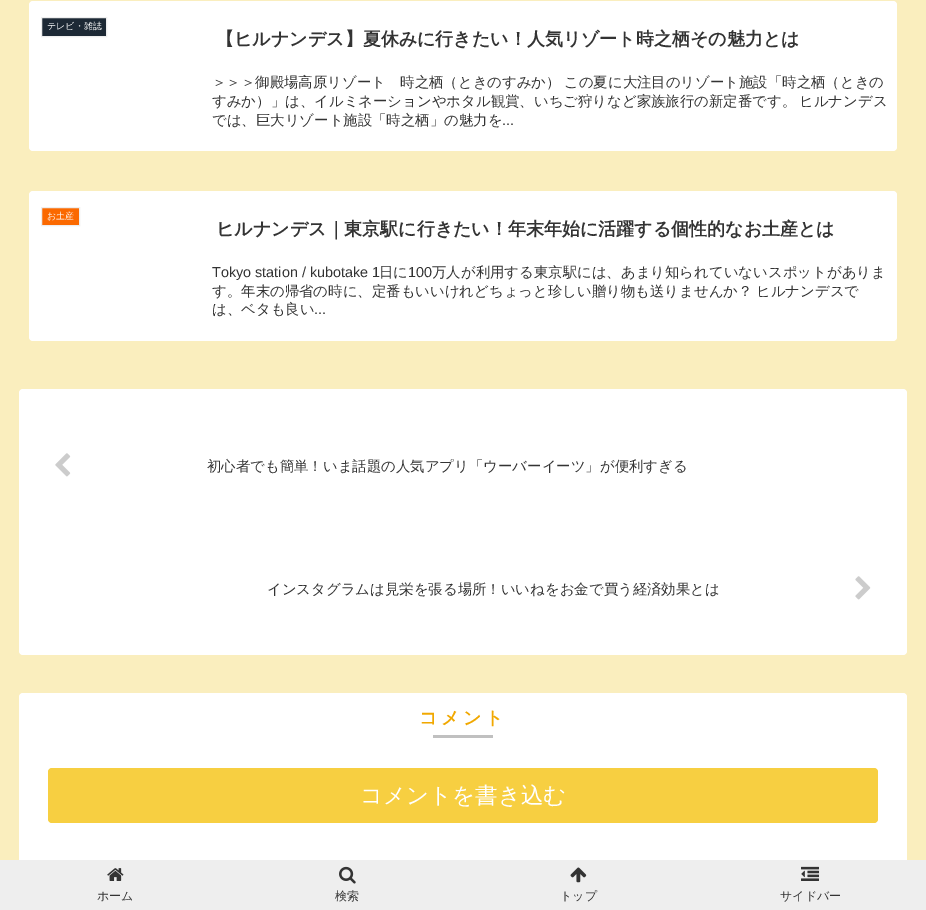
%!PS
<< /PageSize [926 910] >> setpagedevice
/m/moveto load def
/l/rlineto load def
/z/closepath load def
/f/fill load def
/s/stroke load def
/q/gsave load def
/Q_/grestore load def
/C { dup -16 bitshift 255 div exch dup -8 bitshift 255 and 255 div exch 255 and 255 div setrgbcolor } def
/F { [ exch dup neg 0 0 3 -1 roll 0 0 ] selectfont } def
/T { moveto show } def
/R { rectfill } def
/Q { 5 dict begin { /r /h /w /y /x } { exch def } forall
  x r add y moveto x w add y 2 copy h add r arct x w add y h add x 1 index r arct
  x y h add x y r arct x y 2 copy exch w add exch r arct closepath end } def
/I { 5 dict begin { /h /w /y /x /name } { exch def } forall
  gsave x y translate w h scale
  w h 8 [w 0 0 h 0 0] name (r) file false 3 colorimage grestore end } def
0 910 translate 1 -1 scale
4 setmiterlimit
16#FAEEBE C
0 0 926 910 R
16#FFFFFF C
29 1 868 150 4 Q f
16#1D2935 C
41.5 17.5 m 65 0 l 0 19 l -65 0 l z q f Q_
16#EEEEEE C
s
/WenQuanYiZenHei-Medium 9 F
16#FFFFFF C
(テレビ・雑誌) 47 29 T
/WenQuanYiZenHei-Bold 18 F
16#333333 C
(【ヒルナンデス】夏休みに行きたい！人気リゾート時之栖その魅力とは) 216 45 T
/WenQuanYiZenHei-Medium 14.4 F
212 87 m -1 0 32 (＞＞＞御殿場高原リゾート　時之栖（ときのすみか） この夏に大注目のリゾート施設「時之栖（ときの) widthshow
(すみか）」は、イルミネーションやホタル観賞、いちご狩りなど家族旅行の新定番です。) 212 106 T
(ヒルナンデス) 799 106 T
(では、巨大リゾート施設「時之栖」の魅力を) 212 125 T
/LiberationSans-Regular 14.4 F
(...) 502 125 T
16#FFFFFF C
29 191 868 150 4 Q f
16#FB6900 C
41.5 207.5 m 38 0 l 0 18 l -38 0 l z q f Q_
16#EEEEEE C
s
/WenQuanYiZenHei-Medium 9 F
16#FFFFFF C
(お土産) 47 219 T
/WenQuanYiZenHei-Bold 18 F
16#333333 C
(ヒルナンデス｜東京駅に行きたい！年末年始に活躍する個性的なお土産とは) 216 235 T
/LiberationSans-Regular 14.4 F
(Tokyo station / kubotake 1) 212 277 T
/WenQuanYiZenHei-Medium 14.4 F
(日に) 379 277 T
/LiberationSans-Regular 14.4 F
(100) 408 277 T
/WenQuanYiZenHei-Medium 14.4 F
(万人が利用する東京駅には、あまり知られていないスポットがありま) 432 277 T
(す。年末の帰省の時に、定番もいいけれどちょっと珍しい贈り物も送りませんか？) 212 296 T
(ヒルナンデスで) 756 296 T
(は、ベタも良い) 212 314 T
/LiberationSans-Regular 14.4 F
(...) 314 314 T
16#FFFFFF C
19 389 888 266 4 Q f
(1.rgb) 55 453 16 24 I
/WenQuanYiZenHei-Medium 14.4 F
16#333333 C
(初心者でも簡単！いま話題の人気アプリ「ウーバーイーツ」が便利すぎる) 207 471 T
(インスタグラムは見栄を張る場所！いいねをお金で買う経済効果とは) 267 594 T
(2.rgb) 855 576 16 24 I
16#FFFFFF C
19 693 888 174 4 Q f
/WenQuanYiZenHei-Bold 18 F
16#F1A800 C
419 724 m 3.5 0 (コメント) ashow
16#C0C0C0 C
433 735 60 3 R
16#F7CF41 C
48 768 830 55 4 Q f
/WenQuanYiZenHei-Medium 22.5 F
16#FFFFFF C
(コメントを書き込む) 360 803 T
16#EEEEEE C
0 860 926 50 R
(3.rgb) 107 868 17 13 I
/WenQuanYiZenHei-Medium 12 F
16#333333 C
(ホーム) 97 900 T
(4.rgb) 339 866 17 18 I
(検索) 335 900 T
(5.rgb) 570 867 17 16 I
(トップ) 560 900 T
(6.rgb) 801 866 18 15 I
(サイドバー) 780 900 T
showpage
